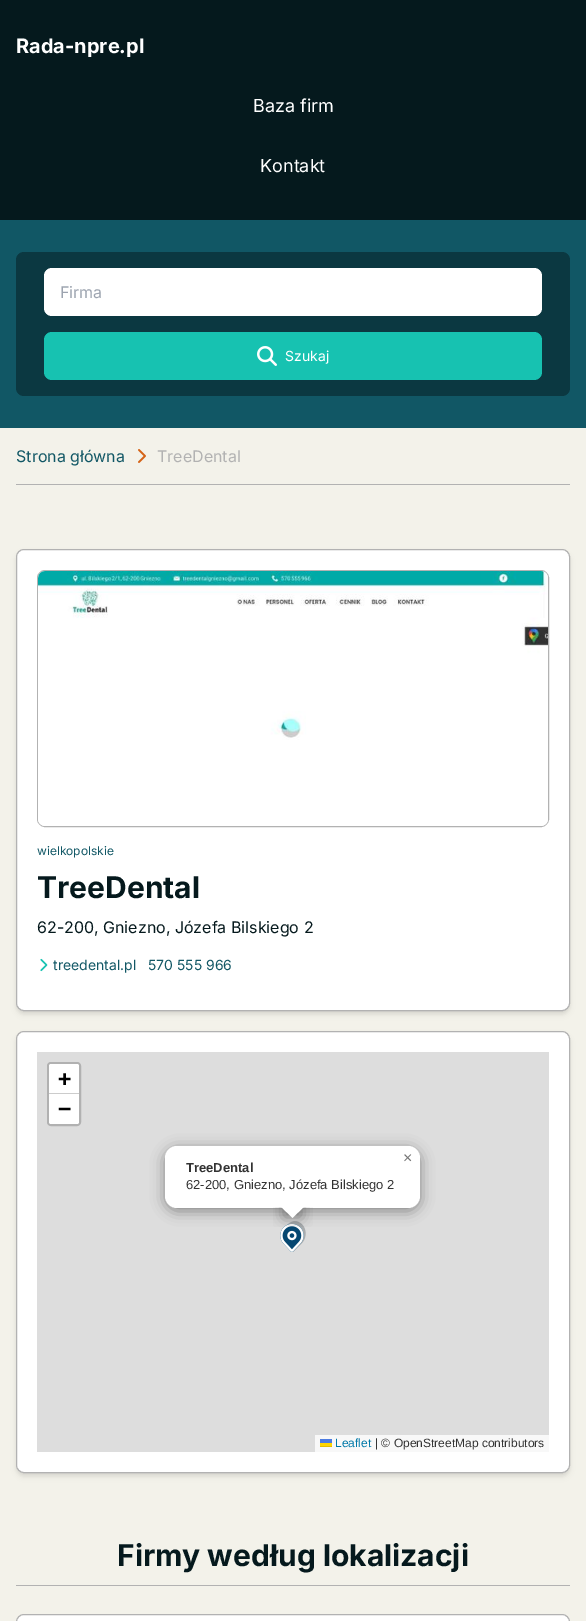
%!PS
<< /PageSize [586 1621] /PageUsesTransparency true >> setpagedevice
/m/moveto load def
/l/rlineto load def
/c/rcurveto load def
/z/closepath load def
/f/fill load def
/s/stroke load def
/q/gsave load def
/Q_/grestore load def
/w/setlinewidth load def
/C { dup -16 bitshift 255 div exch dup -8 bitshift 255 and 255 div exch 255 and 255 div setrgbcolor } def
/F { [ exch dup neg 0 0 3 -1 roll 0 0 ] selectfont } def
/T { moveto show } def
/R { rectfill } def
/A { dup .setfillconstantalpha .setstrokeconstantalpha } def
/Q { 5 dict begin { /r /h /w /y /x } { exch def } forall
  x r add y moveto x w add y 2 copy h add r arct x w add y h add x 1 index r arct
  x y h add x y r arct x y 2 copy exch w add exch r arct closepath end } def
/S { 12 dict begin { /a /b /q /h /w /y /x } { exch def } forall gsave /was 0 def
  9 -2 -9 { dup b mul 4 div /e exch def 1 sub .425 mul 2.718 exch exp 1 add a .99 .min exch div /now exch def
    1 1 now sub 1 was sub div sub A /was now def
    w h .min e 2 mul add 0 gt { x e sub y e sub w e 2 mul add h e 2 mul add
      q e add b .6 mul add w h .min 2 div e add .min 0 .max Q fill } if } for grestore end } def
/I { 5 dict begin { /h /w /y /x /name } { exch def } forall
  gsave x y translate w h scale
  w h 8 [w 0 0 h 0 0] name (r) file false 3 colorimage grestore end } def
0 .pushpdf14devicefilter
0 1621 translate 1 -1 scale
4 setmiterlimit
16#F3F2EA C
0 0 586 1621 R
16#05191D C
0 0 586 220 R
/Inter-Bold 20 F
16#FFFFFF C
(Rada-npre.pl) 16 53 T
/Inter-Regular 18 F
(Baza firm) 253 112 T
(Kontakt) 260 172 T
16#115765 C
0 220 586 208 R
16#0B3841 C
16 252 554 144 8 Q f
16#FFFFFF C
44 268 498 48 8 Q f
/Inter-Regular 16 F
16#9CA3AF C
(Firma) 60 298 T
16#17C2B1 C
44 332 498 48 8 Q f
(1.rgb) 257 346 20 20 I
/Inter-Regular 14 F
16#FFFFFF C
(Szukaj) 285 361 T
16#B2B2B2 C
16 484 554 1 R
/Inter-Regular 16 F
16#115765 C
(Strona główna) 16 462 T
(2.rgb) 138 449 8 14 I
16#B2B2B2 C
(TreeDental) 157 462 T
16#000000 C
18 553 550 458 6 2 .1 S
17 554 552 460 7 3 .1 S
16#FFFFFF C
16.5 549.5 553 461 7.5 Q q f Q_
16#B2B2B2 C
s
37.5 570.5 511 256 7.5 Q s
(3.rgb) 38 571 510 255 I
/Inter-Regular 12 F
16#115765 C
(wielkopolskie) 37 855 T
/Inter-Bold 30 F
16#05191D C
(TreeDental) 37 898 T
/Inter-Regular 16 F
(62-200, Gniezno, Józefa Bilskiego 2) 37 933 T
(4.rgb) 40 958 8 14 I
/Inter-Regular 14 F
16#115765 C
(treedental.pl) 53 970 T
(570 555 966) 148 970 T
16#000000 C
18 1035 550 438 6 2 .1 S
17 1036 552 440 7 3 .1 S
16#FFFFFF C
16.5 1031.5 553 441 7.5 Q q f Q_
16#B2B2B2 C
s
16#DDDDDD C
37 1052 512 400 R
16#B1B1B1 C
2 w
48 1063 32 62 3 Q s
16#FFFFFF C
51 1064 m 26 0 l 1 0 2 1 2 2 c 0 27 l -30 0 l 0 -27 l 0 -1 1 -2 2 -2 c z f
16#CCCCCC C
49 1093 30 1 R
/DejaVuSansMono-Bold 22 F
16#000000 C
(+) 58 1086 T
16#FFFFFF C
49 1094 m 30 0 l 0 28 l 0 1 -1 2 -2 2 c -26 0 l -1 0 -2 -1 -2 -2 c z f
16#000000 C
(−) 58 1116 T
16#F8F8F8 C
315 1435 234 17 R
/LiberationSans-Regular 12 F
16#0078A8 C
(Leaflet) 335 1447 T
16#4C7BE1 C
320 1439 12 4 R
16#FFD500 C
320 1443 12 3 R
16#E0BC00 C
320 1446 12 1 R
16#333333 C
(| © OpenStreetMap contributors) 375 1447 T
(5.rgb) 280 1221 26 31 I
16#000000 C
165 1149 255 62 12 7 .4 S
16#FFFFFF C
165 1146 255 62 12 Q f
/LiberationSans-Regular 16 F
16#757575 C
(×) 403 1163 T
/LiberationSans-Bold 13 F
16#333333 C
(TreeDental) 186 1172 T
/LiberationSans-Regular 13 F
(62-200, Gniezno, Józefa Bilskiego 2) 186 1189 T
q
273 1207 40 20 rectclip
16#000000 C
284 1200 17 17 0 7 .4 S
Q_
q
273 1207 40 20 rectclip
16#FFFFFF C
292.5 1193.5 m 12 12.5 l -12 12 l -12 -12 l z f
Q_
16#B2B2B2 C
16 1585 554 1 R
/Inter-Bold 30 F
16#05191D C
(Firmy według lokalizacji) 117 1566 T
16#FFFFFF C
16.5 1614.5 553 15 7.5 Q q f Q_
16#B2B2B2 C
1 w
s
.poppdf14devicefilter showpage
